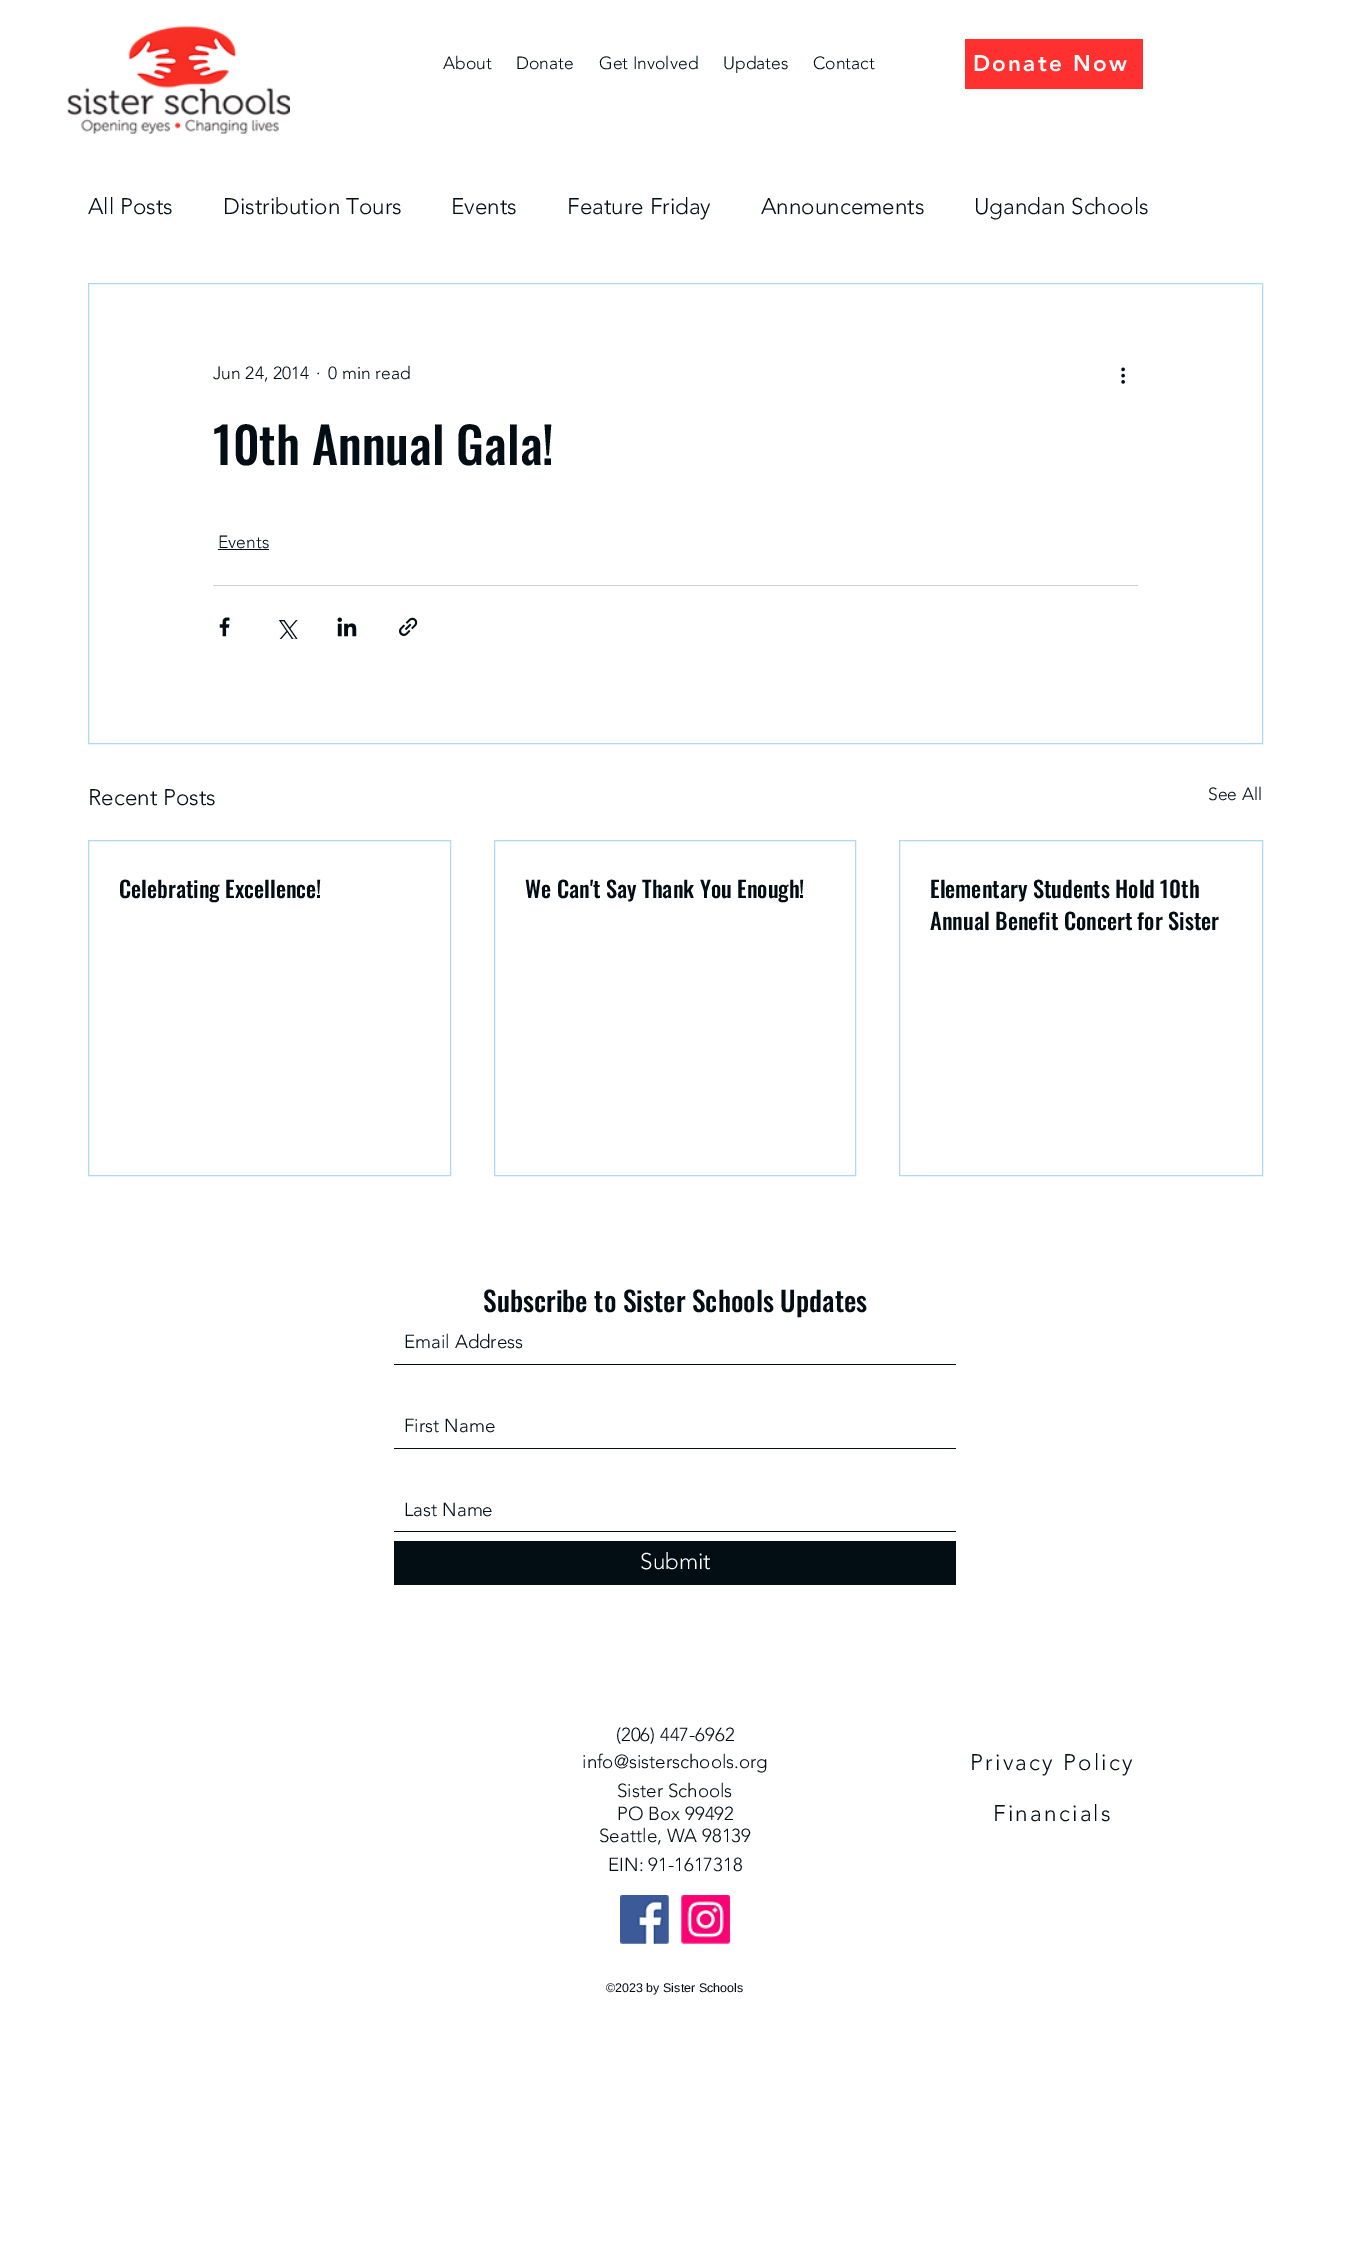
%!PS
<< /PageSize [1349 2242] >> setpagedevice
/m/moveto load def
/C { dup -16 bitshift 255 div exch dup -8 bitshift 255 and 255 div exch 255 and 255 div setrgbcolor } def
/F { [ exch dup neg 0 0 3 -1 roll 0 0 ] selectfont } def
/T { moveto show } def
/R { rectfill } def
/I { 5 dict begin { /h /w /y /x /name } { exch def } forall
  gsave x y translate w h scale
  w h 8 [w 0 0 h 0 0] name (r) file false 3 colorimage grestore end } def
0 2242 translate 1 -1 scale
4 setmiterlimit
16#FFFFFF C
0 0 1349 2242 R
(1.rgb) 67 26 223 108 I
/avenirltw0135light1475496-Light 17.5 F
16#030D14 C
(About) 443 69 T
(Donate) 516 69 T
(Get Involved) 599 69 T
(Updates) 723 69 T
(Contact) 813 69 T
16#FF3030 C
965 39 178 50 R
/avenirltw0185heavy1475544-Black 22.5 F
16#FFFFFF C
973 71 m 2.25 0 (Donate Now) ashow
/avenirltw0135light1475496-Light 22.5 F
16#030D14 C
(All Posts) 88 214 T
(Distribution Tours) 223 214 T
(Events) 451 214 T
(Feature Friday) 567 214 T
(Announcements) 761 214 T
(Ugandan Schools) 974 214 T
16#B0D7F3 C
88.5 283.5 1174 460 rectstroke
/avenirltw0135light1475496-Light 17.5 F
16#030D14 C
(Jun 24, 2014) 213 379 T
(·) 316 379 T
(0 min read) 328 379 T
(2.rgb) 1121 367 4 17 I
/Oswald-Medium 50 F
(10th Annual Gala!) 213 465 T
/avenirltw0135light1475496-Light 17.5 F
(Events) 218 548 T
218 549 51 1 R
16#CDCFD0 C
213 585 925 1 R
(3.rgb) 219 617 11 20 I
(4.rgb) 278 620 20 19 I
(5.rgb) 337 617 20 20 I
(6.rgb) 399 617 19 19 I
/avenirltw0135light1475496-Light 22.5 F
16#030D14 C
(Recent Posts) 88 805 T
/avenirltw0135light1475496-Light 17.5 F
(See All) 1208 800 T
16#B0D7F3 C
88.5 840.5 362 335 rectstroke
/Oswald-Medium 22.5 F
16#030D14 C
(Celebrating Excellence!) 119 898 T
16#B0D7F3 C
494.5 840.5 361 335 rectstroke
16#030D14 C
(We Can't Say Thank You Enough!) 525 898 T
16#B0D7F3 C
899.5 840.5 363 335 rectstroke
16#030D14 C
(Elementary Students Hold 10th) 930 898 T
(Annual Benefit Concert for Sister) 930 930 T
/Oswald-Medium 27.5 F
(Subscribe to Sister Schools Updates) 483 1312 T
394 1364 562 1 R
/avenirltw0135light1475496-Light 18.75 F
(Email Address) 404 1348 T
394 1448 562 1 R
(First Name) 404 1432 T
394 1531 562 1 R
(Last Name) 404 1516 T
394 1541 562 44 R
/avenirltw0135light1475496-Light 22.5 F
16#FFFFFF C
(Submit) 640 1569 T
/avenirltw0135light1475496-Light 18.75 F
16#030D14 C
(\(206\) 447-6962) 616 1741 T
(info@sisterschools.org) 582 1768 T
/avenirltw0135light1475496-Light 22.5 F
970 1770 m 2.25 0 (Privacy Policy) ashow
/avenirltw0135light1475496-Light 18.75 F
(Sister Schools) 617 1797 T
(PO Box 99492) 617 1820 T
(Seattle, WA 98139) 599 1842 T
/avenirltw0135light1475496-Light 22.5 F
993 1821 m 2.25 0 (Financials) ashow
/avenirltw0135light1475496-Light 18.75 F
(EIN: 91-1617318) 608 1871 T
(7.rgb) 620 1895 49 49 I
(8.rgb) 681 1895 49 49 I
/LiberationSans-Regular 12.5 F
(©2023 by Sister Schools) 606 1992 T
showpage
